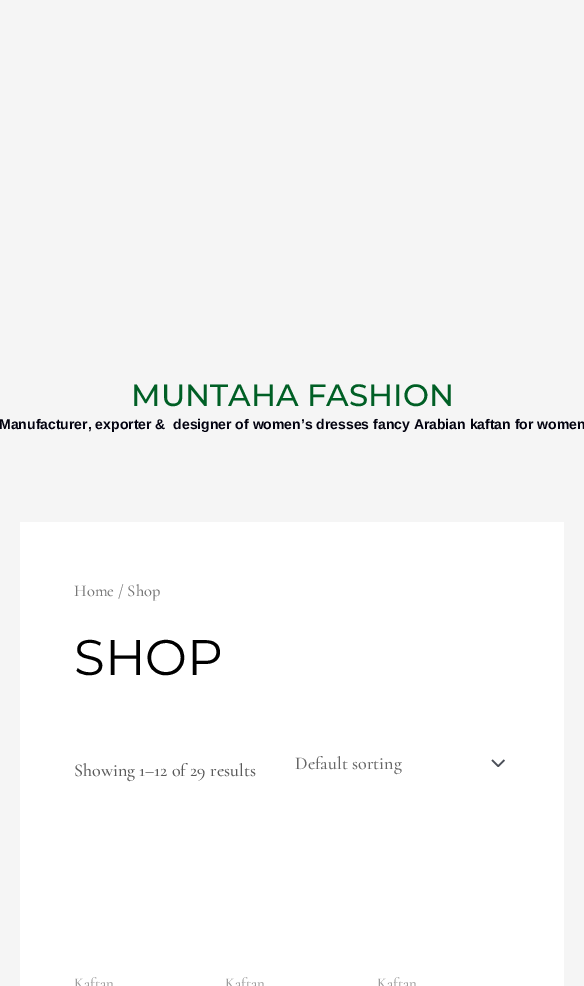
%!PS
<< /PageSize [584 986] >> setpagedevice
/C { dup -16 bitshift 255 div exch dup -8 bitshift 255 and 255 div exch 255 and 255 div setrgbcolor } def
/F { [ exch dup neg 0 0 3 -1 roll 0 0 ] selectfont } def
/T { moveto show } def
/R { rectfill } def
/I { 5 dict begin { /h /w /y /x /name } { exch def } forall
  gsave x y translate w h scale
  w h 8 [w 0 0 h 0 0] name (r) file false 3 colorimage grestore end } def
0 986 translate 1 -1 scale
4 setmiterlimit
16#F5F5F5 C
0 0 584 986 R
/Montserrat-Medium 30.9 F
16#005F25 C
(MUNTAHA FASHION) 131 406 T
/LiberationSans-Bold 14 F
16#02020F C
(Manufacturer, exporter &  designer of women’s dresses fancy Arabian kaftan for women) -1 429 T
16#FFFFFF C
20 522 544 464 R
/Cormorant-Light 16.5 F
16#777777 C
(Home / Shop) 74 596 T
/Montserrat-Regular 50 F
16#000000 C
(SHOP) 74 675 T
/Cormorant-Light 18 F
16#595959 C
(Showing 1–12 of 29 results) 74 776 T
(1.rgb) 491 759 14 8 I
16#666666 C
(Default sorting) 295 769 T
/Cormorant-Light 15 F
16#9C9C9C C
(Kaftan) 74 988 T
(Kaftan) 225 988 T
(Kaftan) 377 988 T
showpage
